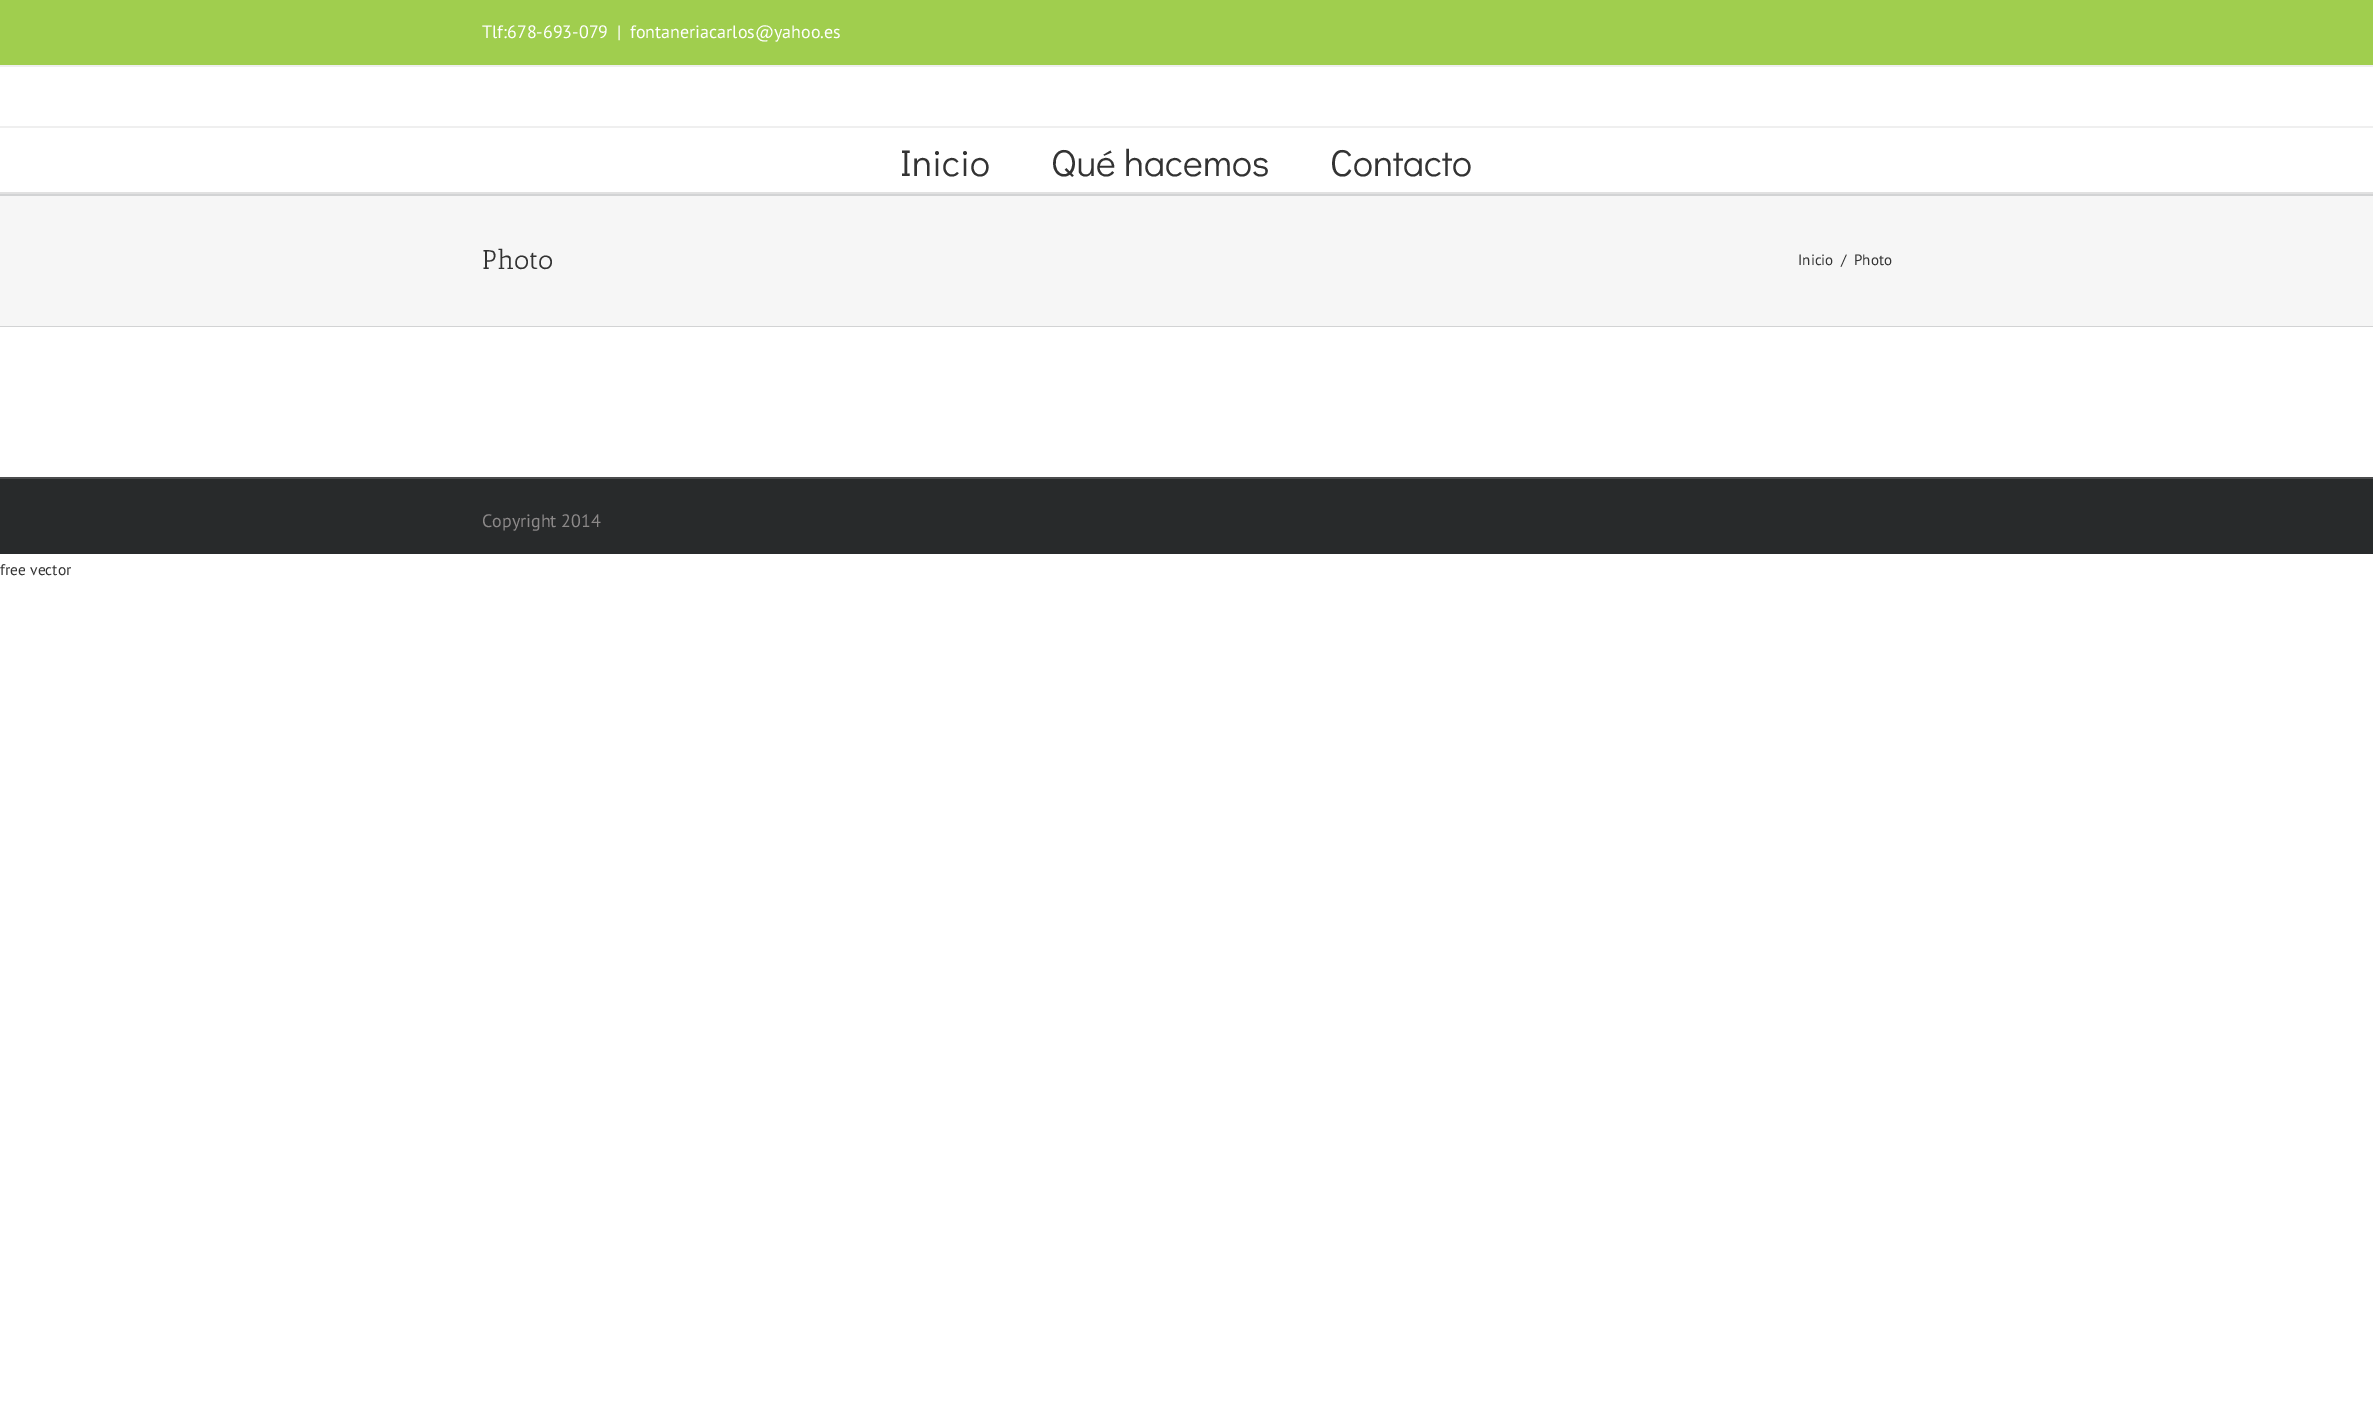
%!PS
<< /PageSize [2373 1416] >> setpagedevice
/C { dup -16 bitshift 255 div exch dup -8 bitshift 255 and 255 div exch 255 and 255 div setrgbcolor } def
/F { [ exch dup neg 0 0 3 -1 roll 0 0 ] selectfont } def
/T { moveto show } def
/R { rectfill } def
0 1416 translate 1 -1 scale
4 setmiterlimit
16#FFFFFF C
0 0 2373 1416 R
16#A0CE4E C
0 0 2373 65 R
16#EFEFEF C
0 65 2373 2 R
/PTSans-Regular 18 F
16#FFFFFF C
(Tlf:678-693-079) 482 38 T
(|) 617 38 T
(fontaneriacarlos@yahoo.es) 630 38 T
16#EFEFEF C
0 126 2373 2 R
16#E1E1E1 C
0 192 2373 2 R
/DidactGothic-Regular 37.5 F
16#333333 C
(Inicio) 900 176 T
(Qué hacemos) 1051 176 T
(Contacto) 1330 176 T
16#F6F6F6 C
0 196 2373 130 R
16#D2D3D4 C
0 194 2373 2 R
0 326 2373 1 R
/AnticSlab-Regular 27 F
16#333333 C
(Photo) 482 269 T
/PTSans-Regular 15 F
(Inicio) 1798 265 T
(/) 1841 265 T
(Photo) 1854 265 T
16#282A2B C
0 479 2373 75 R
16#4B4C4D C
0 477 2373 2 R
/PTSans-Regular 18 F
16#8C8989 C
(Copyright 2014) 482 527 T
/PTSans-Regular 15.5 F
16#333333 C
(free vector) 0 575 T
showpage
